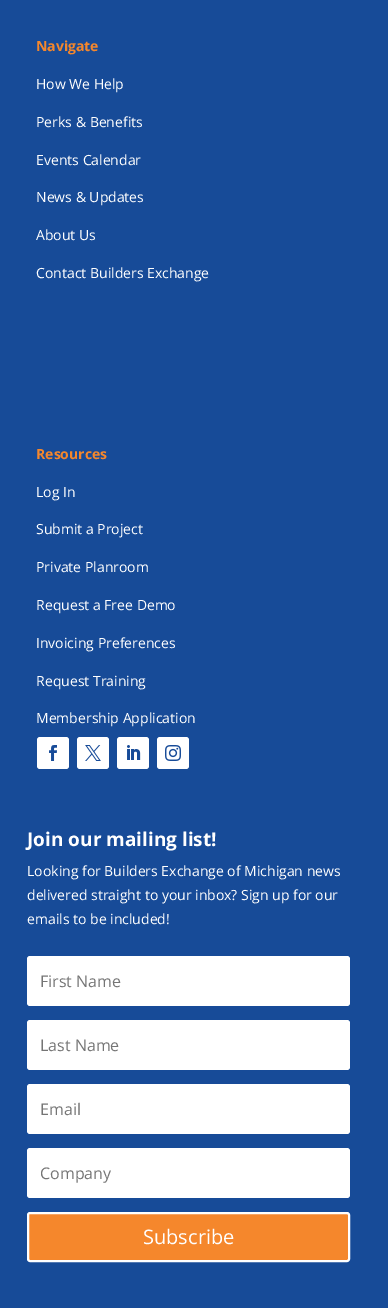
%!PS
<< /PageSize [388 1308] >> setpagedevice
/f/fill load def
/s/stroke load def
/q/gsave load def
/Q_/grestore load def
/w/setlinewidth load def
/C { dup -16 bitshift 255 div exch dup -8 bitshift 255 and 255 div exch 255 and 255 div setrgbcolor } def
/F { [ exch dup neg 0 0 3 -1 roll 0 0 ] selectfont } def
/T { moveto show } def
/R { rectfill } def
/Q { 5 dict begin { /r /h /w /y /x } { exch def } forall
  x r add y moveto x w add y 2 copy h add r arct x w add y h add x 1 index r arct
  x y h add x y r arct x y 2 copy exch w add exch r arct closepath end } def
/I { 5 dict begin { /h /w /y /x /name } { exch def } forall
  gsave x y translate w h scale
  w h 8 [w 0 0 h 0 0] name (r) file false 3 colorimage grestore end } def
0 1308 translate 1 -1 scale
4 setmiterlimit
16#174B98 C
0 0 388 1308 R
/OpenSans-Bold 14 F
16#F5872C C
(Navigate) 36 51 T
/OpenSans-Regular 14 F
16#FFFFFF C
(How We Help) 36 89 T
(Perks & Benefits) 36 127 T
(Events Calendar) 36 165 T
(News & Updates) 36 202 T
(About Us) 36 240 T
(Contact Builders Exchange) 36 278 T
/OpenSans-Bold 14 F
16#F5872C C
(Resources) 36 459 T
/OpenSans-Regular 14 F
16#FFFFFF C
(Log In) 36 497 T
(Submit a Project) 36 534 T
(Private Planroom) 36 572 T
(Request a Free Demo) 36 610 T
(Invoicing Preferences) 36 648 T
(Request Training) 36 686 T
(Membership Application) 36 723 T
37 737 32 32 3 Q f
(1.rgb) 49 745 8 16 I
77 737 32 32 3 Q f
(2.rgb) 85 745 16 16 I
117 737 32 32 3 Q f
(3.rgb) 127 745 14 15 I
157 737 32 32 3 Q f
(4.rgb) 165 745 16 16 I
/OpenSans-Bold 19 F
(Join our mailing list!) 27 846 T
/OpenSans-Regular 14 F
(Looking for Builders Exchange of Michigan news) 27 876 T
(delivered straight to your inbox? Sign up for our) 27 900 T
(emails to be included!) 27 924 T
27 956 323 50 3 Q f
/OpenSans-Regular 16 F
16#757575 C
(First Name) 40 987 T
16#FFFFFF C
27 1020 323 50 3 Q f
16#757575 C
(Last Name) 40 1051 T
16#FFFFFF C
27 1084 323 50 3 Q f
16#757575 C
(Email) 40 1115 T
16#FFFFFF C
27 1148 323 50 3 Q f
16#757575 C
(Company) 40 1179 T
16#F5872C C
28 1213 321 48 2 Q q f Q_
16#FFFFFF C
2 w
s
/OpenSans-Regular 20 F
(Subscribe) 143 1244 T
showpage
